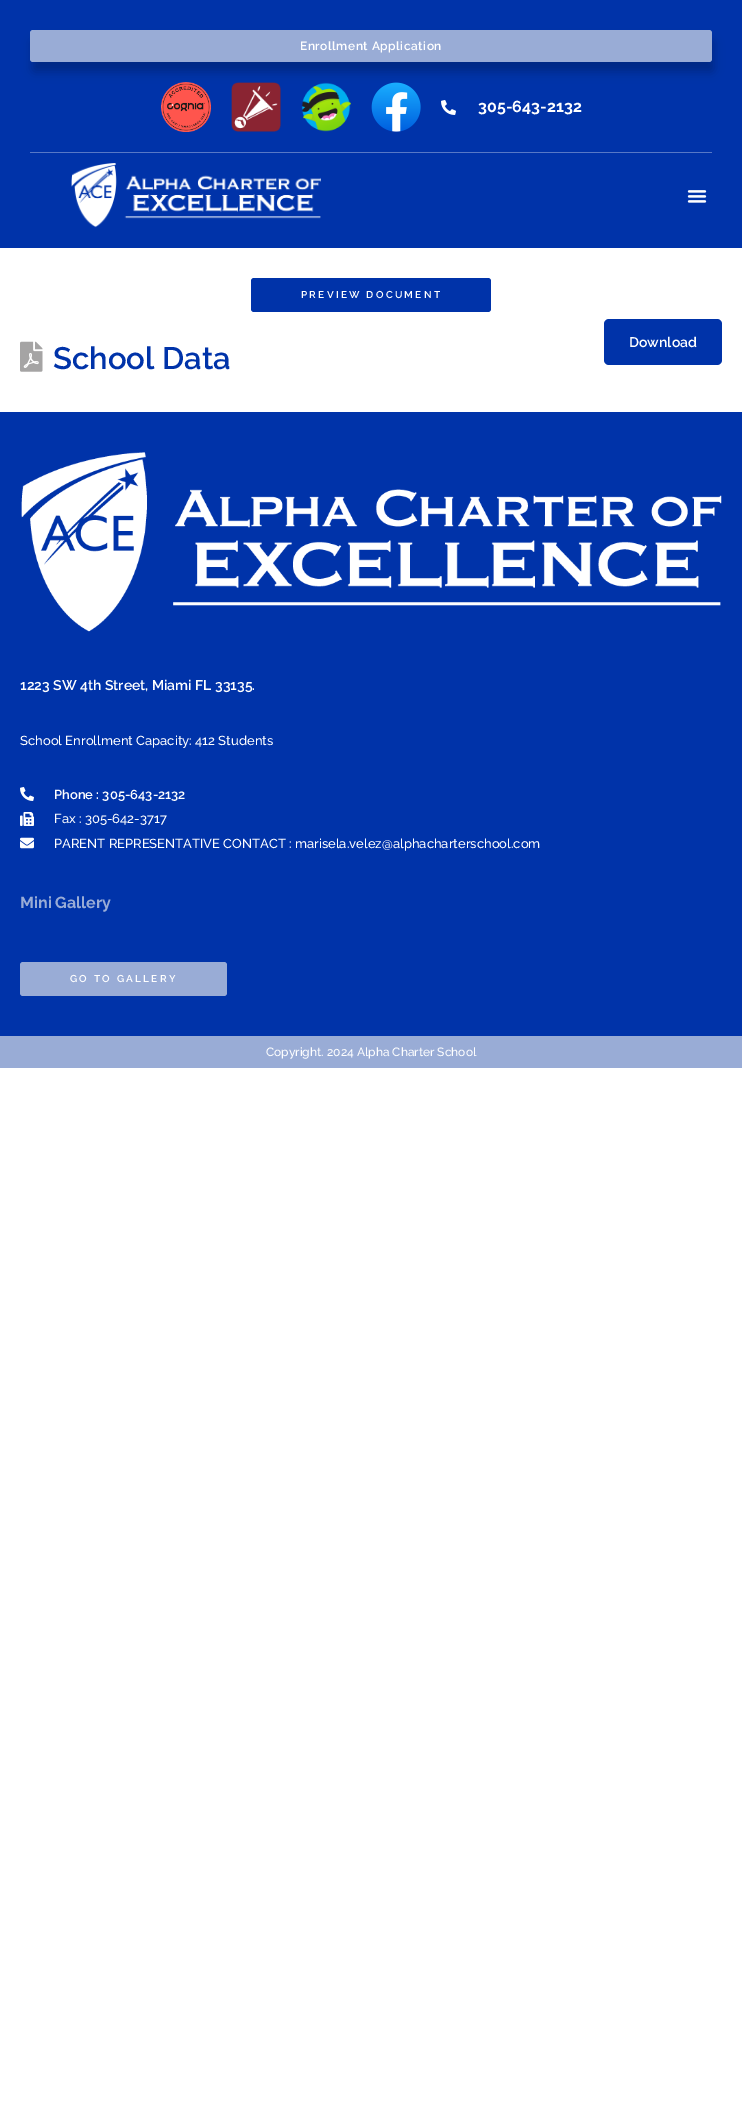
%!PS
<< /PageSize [742 2108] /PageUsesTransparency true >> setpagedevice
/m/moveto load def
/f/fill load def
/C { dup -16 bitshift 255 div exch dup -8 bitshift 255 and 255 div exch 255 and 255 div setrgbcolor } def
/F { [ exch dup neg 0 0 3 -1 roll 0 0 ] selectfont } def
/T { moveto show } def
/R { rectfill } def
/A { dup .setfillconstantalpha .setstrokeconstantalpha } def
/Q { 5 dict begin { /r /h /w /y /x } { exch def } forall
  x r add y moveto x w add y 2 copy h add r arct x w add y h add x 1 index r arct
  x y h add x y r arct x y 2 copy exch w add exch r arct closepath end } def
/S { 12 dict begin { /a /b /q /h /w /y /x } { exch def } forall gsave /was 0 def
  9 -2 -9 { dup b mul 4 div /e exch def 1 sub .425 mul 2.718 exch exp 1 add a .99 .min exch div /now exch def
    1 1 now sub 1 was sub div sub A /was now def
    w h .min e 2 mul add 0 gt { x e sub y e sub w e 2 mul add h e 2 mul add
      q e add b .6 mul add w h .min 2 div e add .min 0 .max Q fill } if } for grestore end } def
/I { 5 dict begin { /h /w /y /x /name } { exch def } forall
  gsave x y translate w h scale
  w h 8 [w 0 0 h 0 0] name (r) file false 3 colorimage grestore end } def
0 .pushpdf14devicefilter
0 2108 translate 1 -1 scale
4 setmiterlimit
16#FFFFFF C
0 0 742 2108 R
16#0033A9 C
0 0 742 248 R
16#000000 C
32 40 682 32 3 5 .22 S
16#99ACD6 C
30 30 682 32 3 Q f
/Raleway-SemiBold 12 F
16#FFFFFF C
300 50 m .5 0 (Enrollment Application) ashow
(1.rgb) 161 82 50 50 I
(2.rgb) 231 82 50 50 I
(3.rgb) 301 82 50 50 I
(4.rgb) 371 82 50 50 I
(5.rgb) 441 100 15 15 I
/Raleway-Bold 16 F
(305-643-2132) 478 112 T
16#5778C6 C
30 152 682 1 R
(6.rgb) 71 163 250 65 I
(7.rgb) 687 190 20 13 I
16#0033A9 C
251 278 240 34 3 Q f
/Raleway-SemiBold 10 F
16#FFFFFF C
301 298 m 2.25 0 (PREVIEW DOCUMENT) ashow
16#0033A9 C
604 319 118 46 5 Q f
/Raleway-SemiBold 14 F
16#FFFFFF C
(Download) 629 347 T
(8.rgb) 20 341 23 31 I
/Raleway-SemiBold 31 F
16#0033A9 C
(School Data) 53 369 T
0 412 742 624 R
(9.rgb) 21 452 701 180 I
/Raleway-SemiBold 14 F
16#FFFFFF C
(1223 SW 4th Street, Miami FL 33135.) 20 690 T
/Raleway-Medium 13 F
(School Enrollment Capacity: 412 Students) 20 745 T
(10.rgb) 20 787 14 14 I
/Raleway-SemiBold 13 F
(Phone : 305-643-2132) 54 799 T
(11.rgb) 20 812 14 14 I
/Raleway-Medium 13 F
(Fax : 305-642-3717) 54 823 T
(12.rgb) 20 837 14 12 I
(PARENT REPRESENTATIVE CONTACT : marisela.velez@alphacharterschool.com) 54 848 T
/Raleway-Bold 16 F
16#99ACD6 C
(Mini Gallery) 20 908 T
20 962 207 34 3 Q f
/Raleway-SemiBold 10 F
16#FFFFFF C
70 982 m 2.25 0 (GO TO GALLERY) ashow
16#99ACD6 C
0 1036 742 32 R
/Raleway-Medium 12 F
16#FFFFFF C
(Copyright. 2024 Alpha Charter School) 266 1056 T
.poppdf14devicefilter showpage
